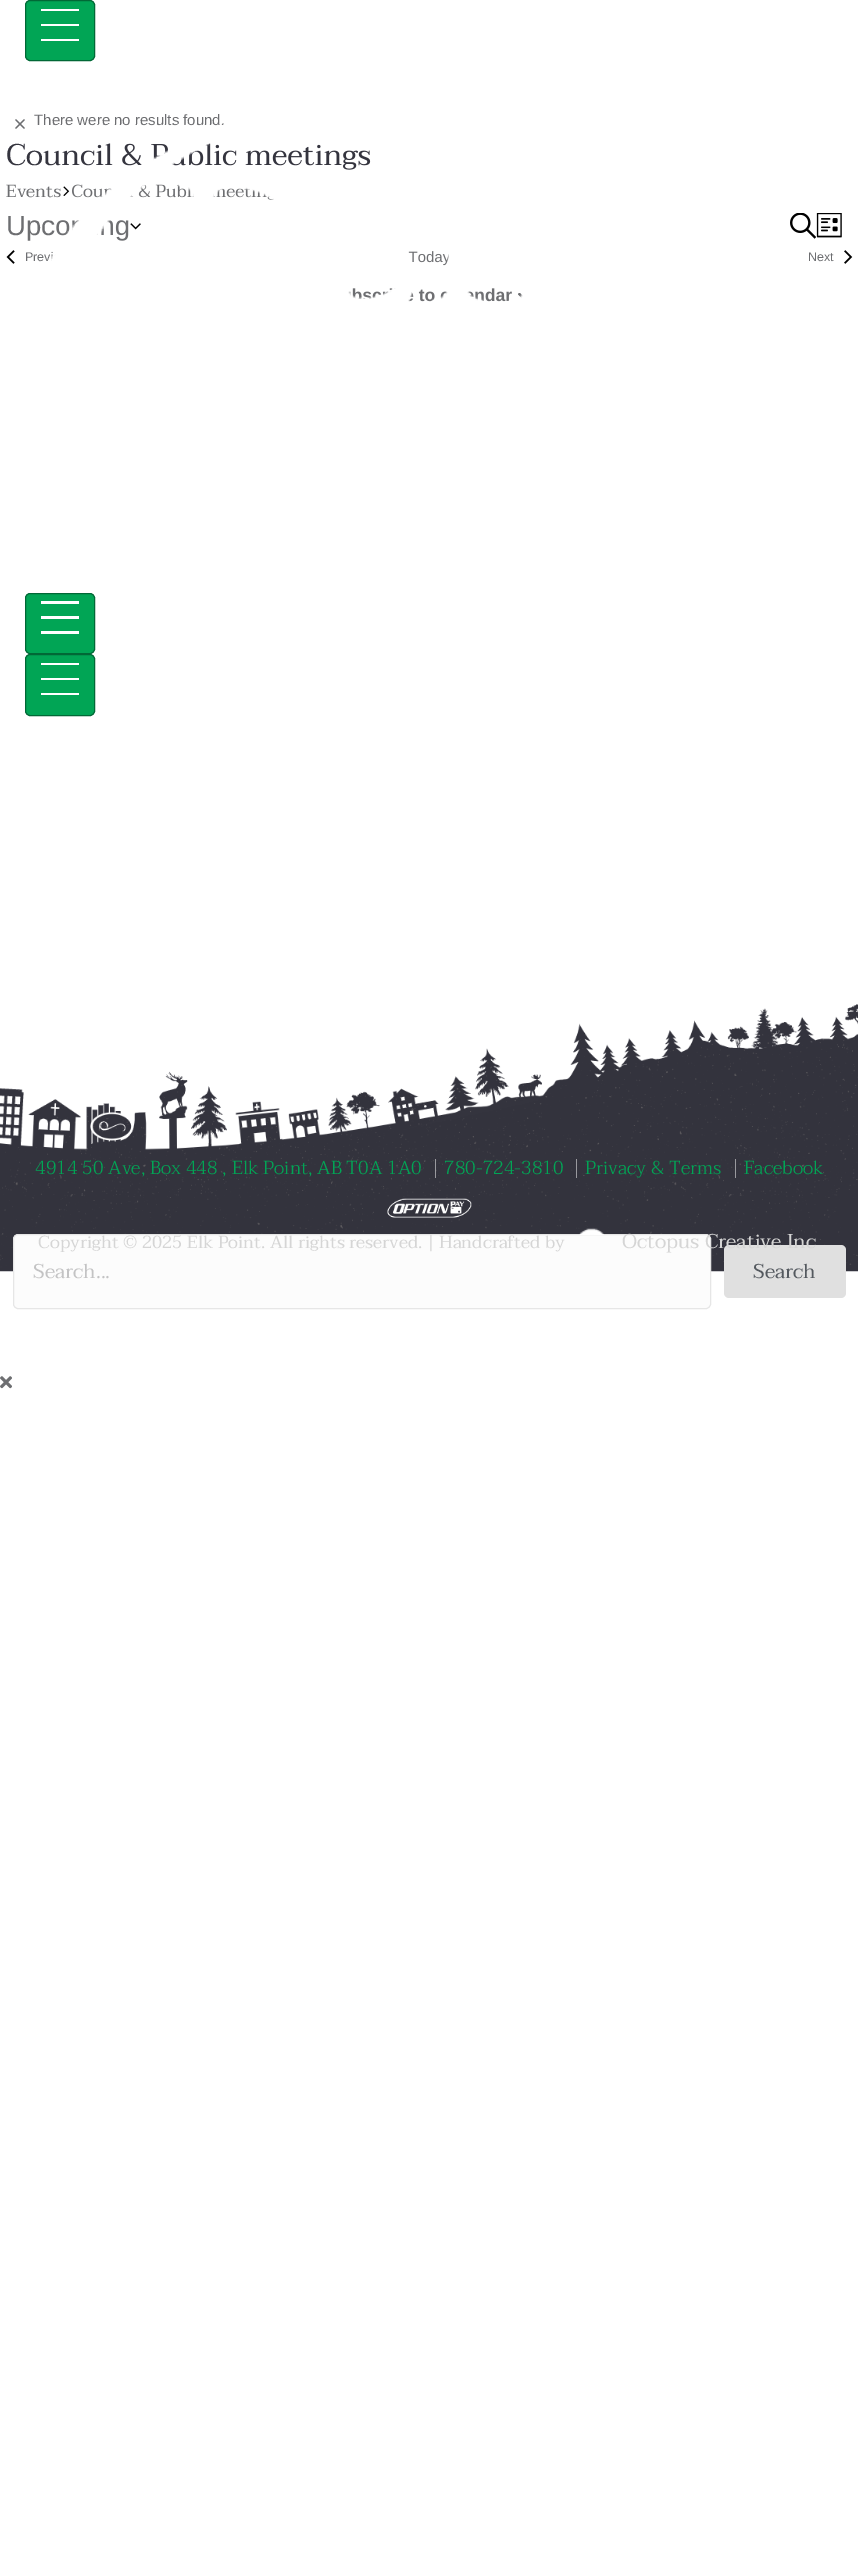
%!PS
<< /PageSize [858 2563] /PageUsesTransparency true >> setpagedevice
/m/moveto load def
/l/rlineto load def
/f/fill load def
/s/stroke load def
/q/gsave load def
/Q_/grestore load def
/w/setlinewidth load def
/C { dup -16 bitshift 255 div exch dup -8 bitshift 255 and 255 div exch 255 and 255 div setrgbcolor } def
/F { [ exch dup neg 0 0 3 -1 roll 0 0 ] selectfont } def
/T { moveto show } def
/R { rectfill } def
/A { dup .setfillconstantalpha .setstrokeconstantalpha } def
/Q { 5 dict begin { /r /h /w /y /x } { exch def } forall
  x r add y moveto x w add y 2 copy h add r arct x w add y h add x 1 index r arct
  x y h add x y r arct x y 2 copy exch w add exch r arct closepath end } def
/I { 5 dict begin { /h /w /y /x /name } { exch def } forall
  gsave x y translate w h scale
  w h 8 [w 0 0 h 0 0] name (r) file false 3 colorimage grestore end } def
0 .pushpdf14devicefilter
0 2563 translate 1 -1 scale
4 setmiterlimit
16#FFFFFF C
0 0 858 2563 R
16#01A555 C
25.5 .5 69 60 4.5 Q q f Q_
16#016836 C
s
16#FFFFFF C
41 9 38 2 R
41 24 38 2 R
41 39 38 2 R
/LiberationSans-Regular 15 F
16#6D6E71 C
(There were no results found.) 34 125 T
/Taviraj-Regular 30 F
16#34343E C
(Council &) 6 165 T
(lic meetings) 204 165 T
/Taviraj-Regular 17.5 F
16#6D6E71 C
(Events) 6 197 T
(2.rgb) 63 186 7 10 I
(Cou) 71 197 T
(Pub) 155 197 T
(ee) 226 197 T
/LiberationSans-Regular 27.5 F
(Upco) 6 235 T
(ng) 99 235 T
(3.rgb) 130 223 11 7 I
/LiberationSans-Regular 12.5 F
(Previ) 25 261 T
/LiberationSans-Regular 15 F
(Today) 409 262 T
/LiberationSans-Bold 17.5 F
(to) 419 301 T
(dar) 485 301 T
(8.rgb) 518 293 5 6 I
(1.rgb) 51 124 479 178 I
16#01A555 C
25.5 593.5 69 60 4.5 Q q f Q_
16#016836 C
s
16#FFFFFF C
41 601 38 3 R
41 616 38 3 R
41 631 38 3 R
16#01A555 C
25.5 654.5 69 61 4.5 Q q f Q_
16#016836 C
s
16#FFFFFF C
41 663 38 2 R
41 678 38 2 R
41 693 38 2 R
16#6D6E71 C
1.3 w
1 setlinecap
16 120 m 8 8 l 24 120 m -8 8 l s
(4.rgb) 790 213 26 26 I
(5.rgb) 816 213 26 25 I
(6.rgb) 6 250 9 14 I
/LiberationSans-Regular 12.5 F
(Next) 808 261 T
(7.rgb) 844 250 9 14 I
(9.rgb) 0 1004 858 268 I
/Taviraj-Light 18.75 F
16#01A555 C
(4914 50 Ave, Box 448 , Elk Point, AB T0A 1A0) 35 1174 T
0.5 A
16#FFFFFF C
435 1159 1 19 R
1 A
16#01A555 C
(780-724-3810) 444 1174 T
16#99999E C
576 1159 1 19 R
16#01A555 C
(Privacy & Terms) 585 1174 T
16#99999E C
735 1159 1 19 R
16#01A555 C
(Facebook) 744 1174 T
(10.rgb) 387 1198 85 20 I
16#FCFCFC C
13.5 1234.5 697 74 4.5 Q q f Q_
16#E6E6E6 C
1 w
0 setlinecap
s
(11.rgb) 579 1228 25 7 I
/Taviraj-Regular 17.5 F
16#D5D5D5 C
(Copyright © 2025 Elk Point. All rights reserved. | Handcrafted by) 38 1248 T
16#E0E0E0 C
724 1245 122 53 5 Q f
/Taviraj-Regular 20 F
16#D5D5D5 C
(Octopus Creative Inc) 622 1248 T
16#C3C3C4 C
(Search...) 33 1278 T
16#54595F C
(Search) 753 1278 T
(12.rgb) 0 1376 12 13 I
.poppdf14devicefilter showpage
